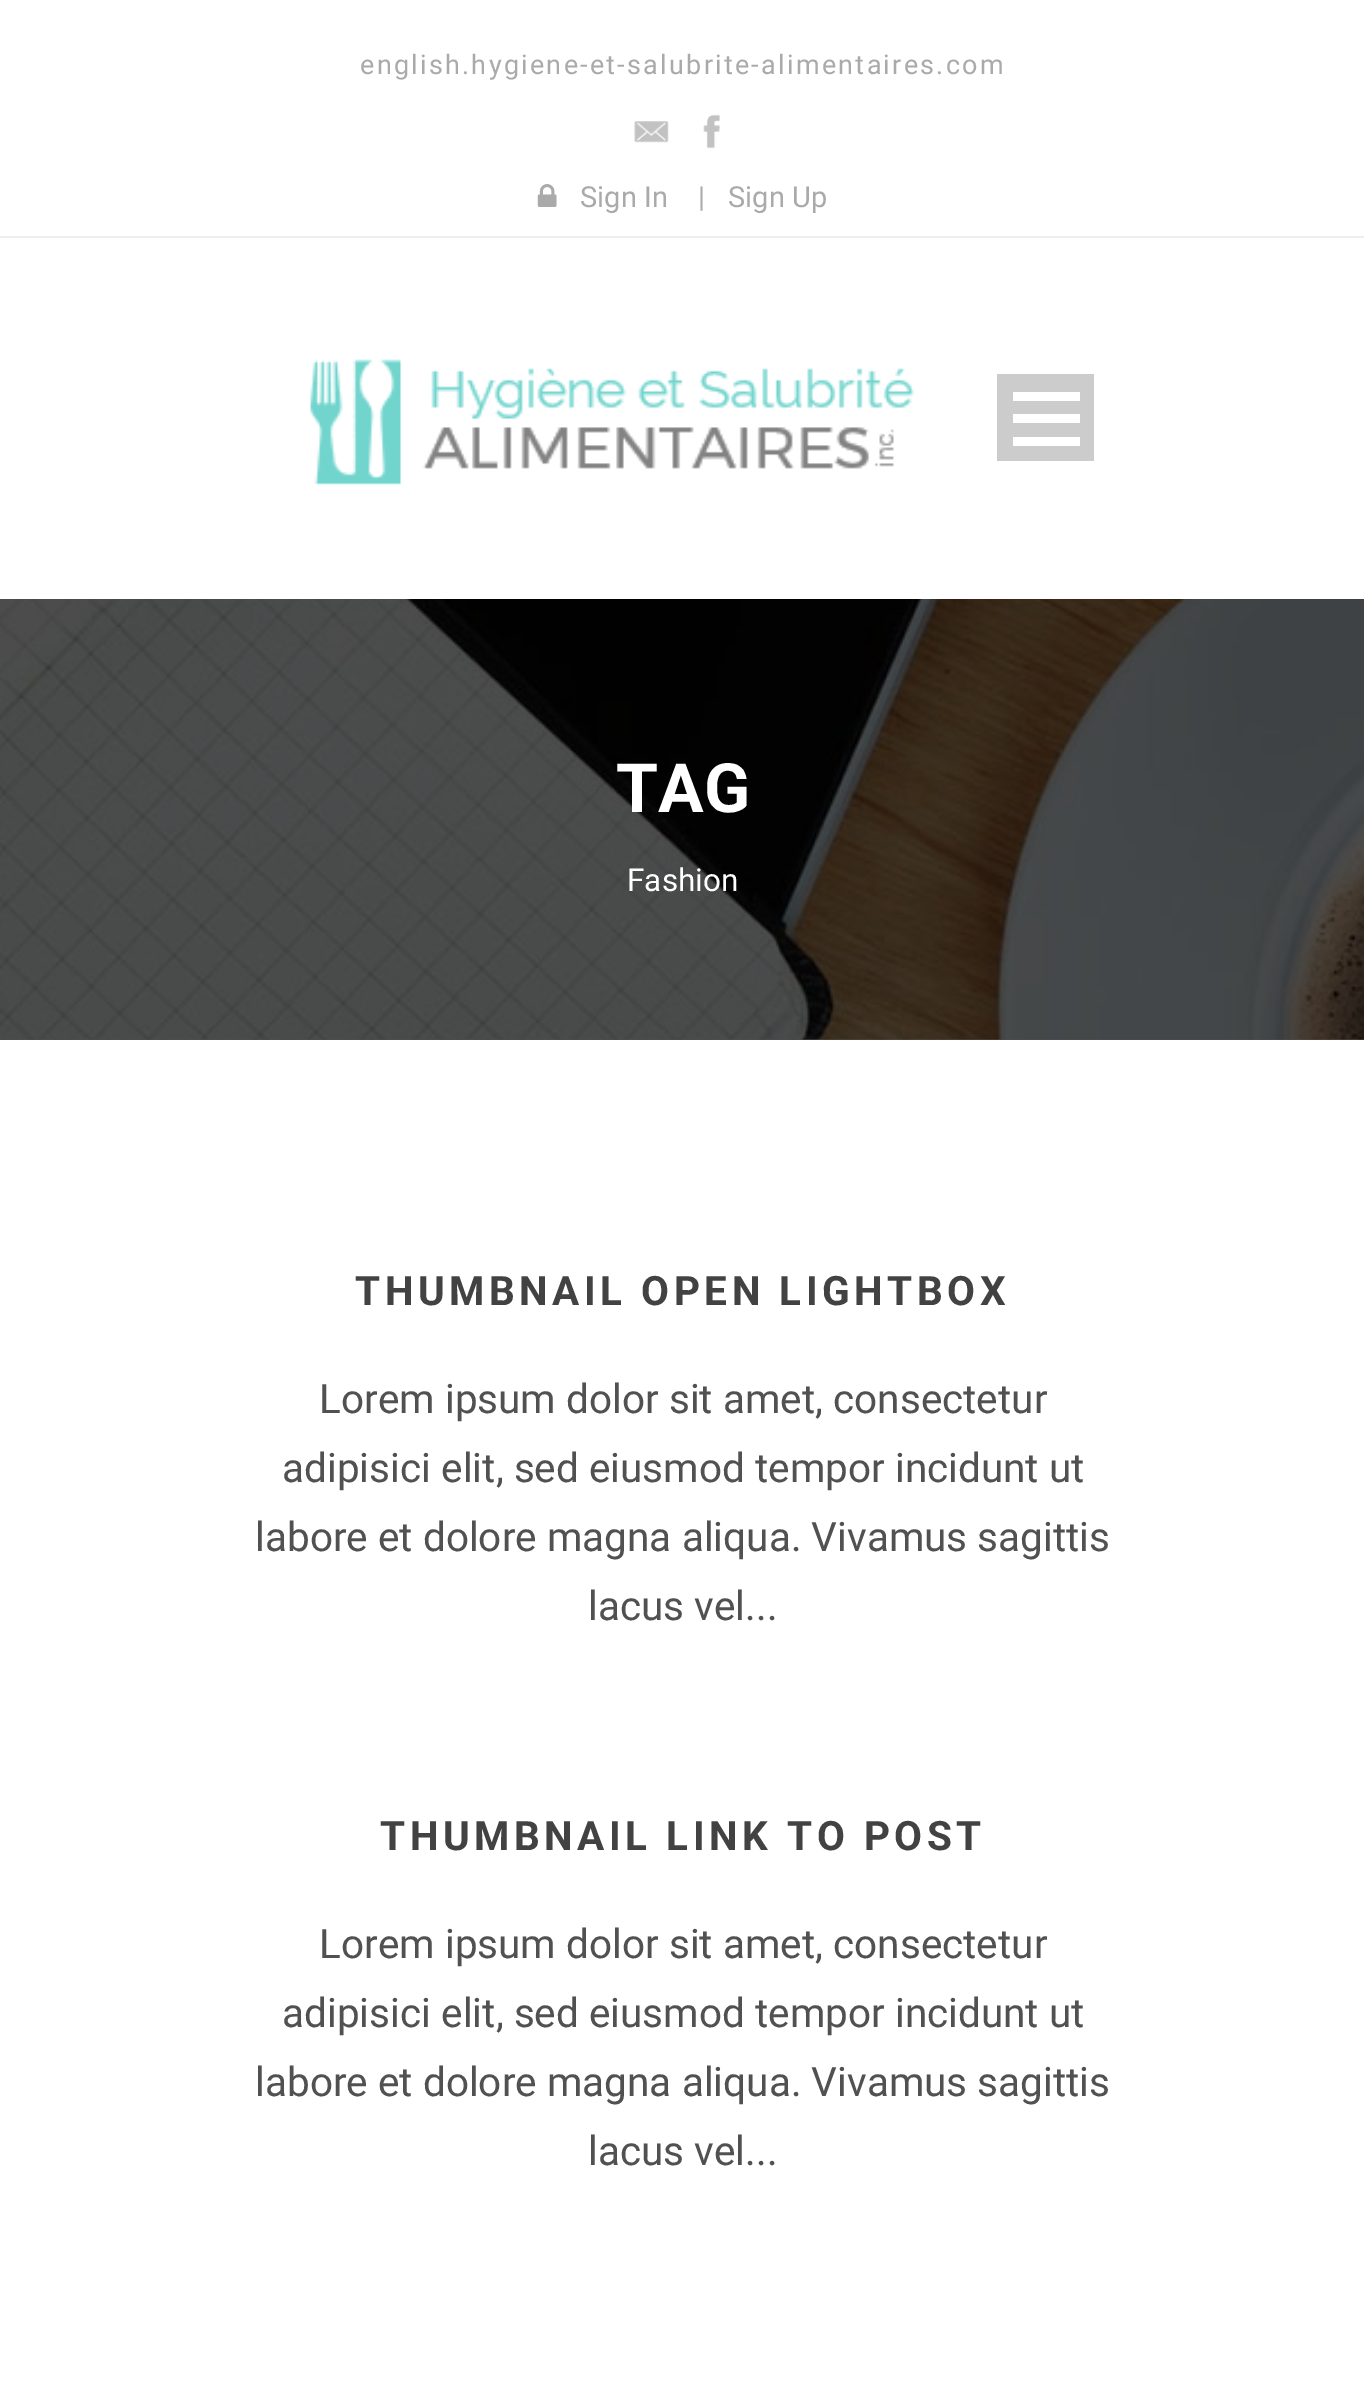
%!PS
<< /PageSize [1364 2390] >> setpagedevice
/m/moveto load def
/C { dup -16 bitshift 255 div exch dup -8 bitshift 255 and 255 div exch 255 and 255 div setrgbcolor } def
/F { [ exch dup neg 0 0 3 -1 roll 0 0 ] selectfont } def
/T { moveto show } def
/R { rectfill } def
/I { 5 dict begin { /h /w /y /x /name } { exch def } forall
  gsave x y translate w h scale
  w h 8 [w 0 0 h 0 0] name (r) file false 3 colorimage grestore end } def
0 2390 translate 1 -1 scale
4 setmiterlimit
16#FFFFFF C
0 0 1364 2390 R
16#4D4D4D C
0 1039 1364 1 R
16#EEEEEE C
0 236 1364 2 R
/Roboto-Regular 27 F
16#AAAAAA C
360 74 m 2.25 0 (english.hygiene-et-salubrite-alimentaires.com) ashow
(1.rgb) 634 121 35 22 I
(2.rgb) 703 114 17 35 I
(3.rgb) 537 184 20 23 I
/Roboto-Regular 29 F
(Sign In) 580 207 T
(|) 698 207 T
(Sign Up) 728 207 T
(4.rgb) 310 359 604 126 I
16#CCCCCC C
997 374 97 87 R
16#FFFFFF C
1013 437 67 9 R
1013 414 67 9 R
1013 392 67 9 R
(5.rgb) 0 599 1364 441 I
/Roboto-Bold 68 F
(TAG) 616 812 T
/Roboto-Regular 31.5 F
(Fashion) 627 891 T
/Roboto-Bold 40.5 F
16#424242 C
355 1305 m 4.5 0 (THUMBNAIL OPEN LIGHTBOX) ashow
/Roboto-Regular 40.5 F
16#515151 C
(Lorem ipsum dolor sit amet, consectetur) 319 1413 T
(adipisici elit, sed eiusmod tempor incidunt ut) 282 1482 T
(labore et dolore magna aliqua. Vivamus sagittis) 255 1551 T
(lacus vel...) 588 1620 T
/Roboto-Bold 40.5 F
16#424242 C
380 1850 m 4.5 0 (THUMBNAIL LINK TO POST) ashow
/Roboto-Regular 40.5 F
16#515151 C
(Lorem ipsum dolor sit amet, consectetur) 319 1958 T
(adipisici elit, sed eiusmod tempor incidunt ut) 282 2027 T
(labore et dolore magna aliqua. Vivamus sagittis) 255 2096 T
(lacus vel...) 588 2165 T
showpage
